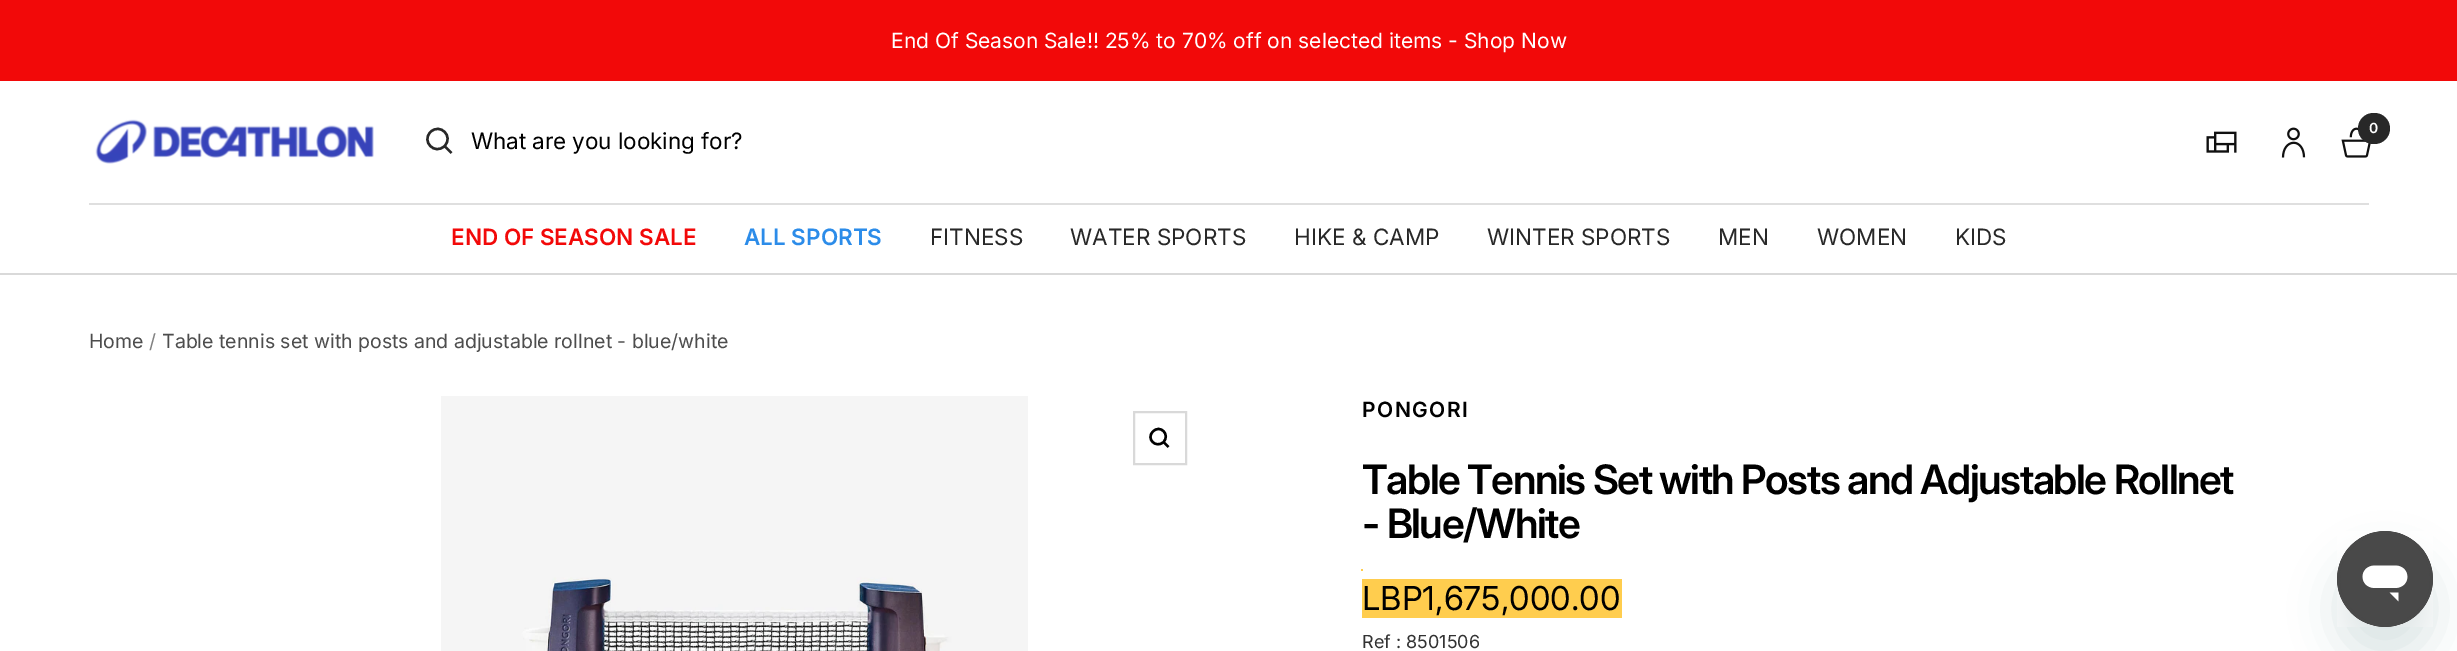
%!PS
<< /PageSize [2457 651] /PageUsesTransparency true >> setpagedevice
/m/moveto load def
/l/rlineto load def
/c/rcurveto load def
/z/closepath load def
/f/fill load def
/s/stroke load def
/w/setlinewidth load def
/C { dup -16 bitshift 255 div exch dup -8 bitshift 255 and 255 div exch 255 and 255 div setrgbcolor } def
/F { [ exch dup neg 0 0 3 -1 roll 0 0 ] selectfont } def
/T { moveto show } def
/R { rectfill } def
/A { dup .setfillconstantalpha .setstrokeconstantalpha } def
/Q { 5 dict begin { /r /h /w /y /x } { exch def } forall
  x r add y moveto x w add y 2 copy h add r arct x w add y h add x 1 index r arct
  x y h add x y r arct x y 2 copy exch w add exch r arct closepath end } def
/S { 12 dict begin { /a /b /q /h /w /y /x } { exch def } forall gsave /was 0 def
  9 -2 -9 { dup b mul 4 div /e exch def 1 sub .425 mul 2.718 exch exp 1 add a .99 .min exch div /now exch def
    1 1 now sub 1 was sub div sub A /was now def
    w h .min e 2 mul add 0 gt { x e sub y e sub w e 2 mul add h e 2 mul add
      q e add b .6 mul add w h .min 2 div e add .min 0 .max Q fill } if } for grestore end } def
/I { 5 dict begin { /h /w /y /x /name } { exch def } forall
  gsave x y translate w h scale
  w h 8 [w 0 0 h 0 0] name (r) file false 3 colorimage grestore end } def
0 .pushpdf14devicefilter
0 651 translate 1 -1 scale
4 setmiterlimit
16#FFFFFF C
0 0 2457 651 R
16#F20909 C
0 0 2457 81 R
/Inter-Regular 21 F
16#FFFFFF C
(End Of Season Sale!! 25% to 70% off on selected items - Shop Now) 891 48 T
16#D9D9D9 C
0 273 2457 2 R
(1.rgb) 95 119 279 45 I
(2.rgb) 2206 131 31 22 I
(3.rgb) 2281 127 25 31 I
(4.rgb) 2341 127 30 31 I
16#282828 C
2358 113 32 31 15.5 Q f
/Inter-SemiBold 14 F
16#FFFFFF C
(0) 2369 133 T
16#282828 C
2.4 w
444.5 146 m 9.5 -9.5 -4.5 -23.5 -14 -14 c -9.5 9.5 4.5 23.5 14 14 c z 444.5 146 m 7 7 l s
/Inter-Regular 22.5 F
16#000000 C
471 149 m -.5 0 32 (What are you looking for?) widthshow
16#DFDFDF C
89 203 2280 2 R
/Inter-SemiBold 22.5 F
16#F20909 C
(END OF SEASON SALE) 451 245 T
16#2C8CE9 C
(ALL SPORTS) 744 245 T
/Inter-Regular 22.5 F
16#282828 C
(FITNESS) 930 245 T
(WATER SPORTS) 1070 245 T
(HIKE & CAMP) 1294 245 T
(WINTER SPORTS) 1487 245 T
(MEN) 1718 245 T
(WOMEN) 1817 245 T
(KIDS) 1955 245 T
/Inter-Regular 19.5 F
16#4D4D4D C
(Home) 89 348 T
16#828282 C
(/) 149 348 T
16#4D4D4D C
(Table tennis set with posts and adjustable rollnet - blue/white) 162 348 T
(5.rgb) 441 396 587 255 I
16#D9D9D9 C
2 w
1134 412 52 52 rectstroke
16#000000 C
2.4 w
1163.5 442 m 7 -7.5 -3.5 -18 -10.5 -10.5 c -7.5 7 3 17.5 10.5 10.5 c z 1163.5 442 m 5 5 l s
/Inter-SemiBold 21 F
1362 417 m 1.5 0 (PONGORI) ashow
/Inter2-SemiBold 40.5 F
1362 494 m -1.5 0 (Table Tennis Set with Posts and Adjustable Rollnet) ashow
1362 538 m -1.5 0 (- Blue/White) ashow
16#FFCD4E C
1362 579 260 39 R
/Inter2-Regular 33 F
16#000000 C
(LBP1,675,000.00) 1362 610 T
16#FFCD4E C
1361 569 2 2 R
/Inter-Regular 18 F
16#333333 C
(Ref : 8501506) 1362 648 T
16#17494D C
2337 561 96 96 48 22.5 .15 S
(6.rgb) 2337 531 96 96 I
.poppdf14devicefilter showpage
